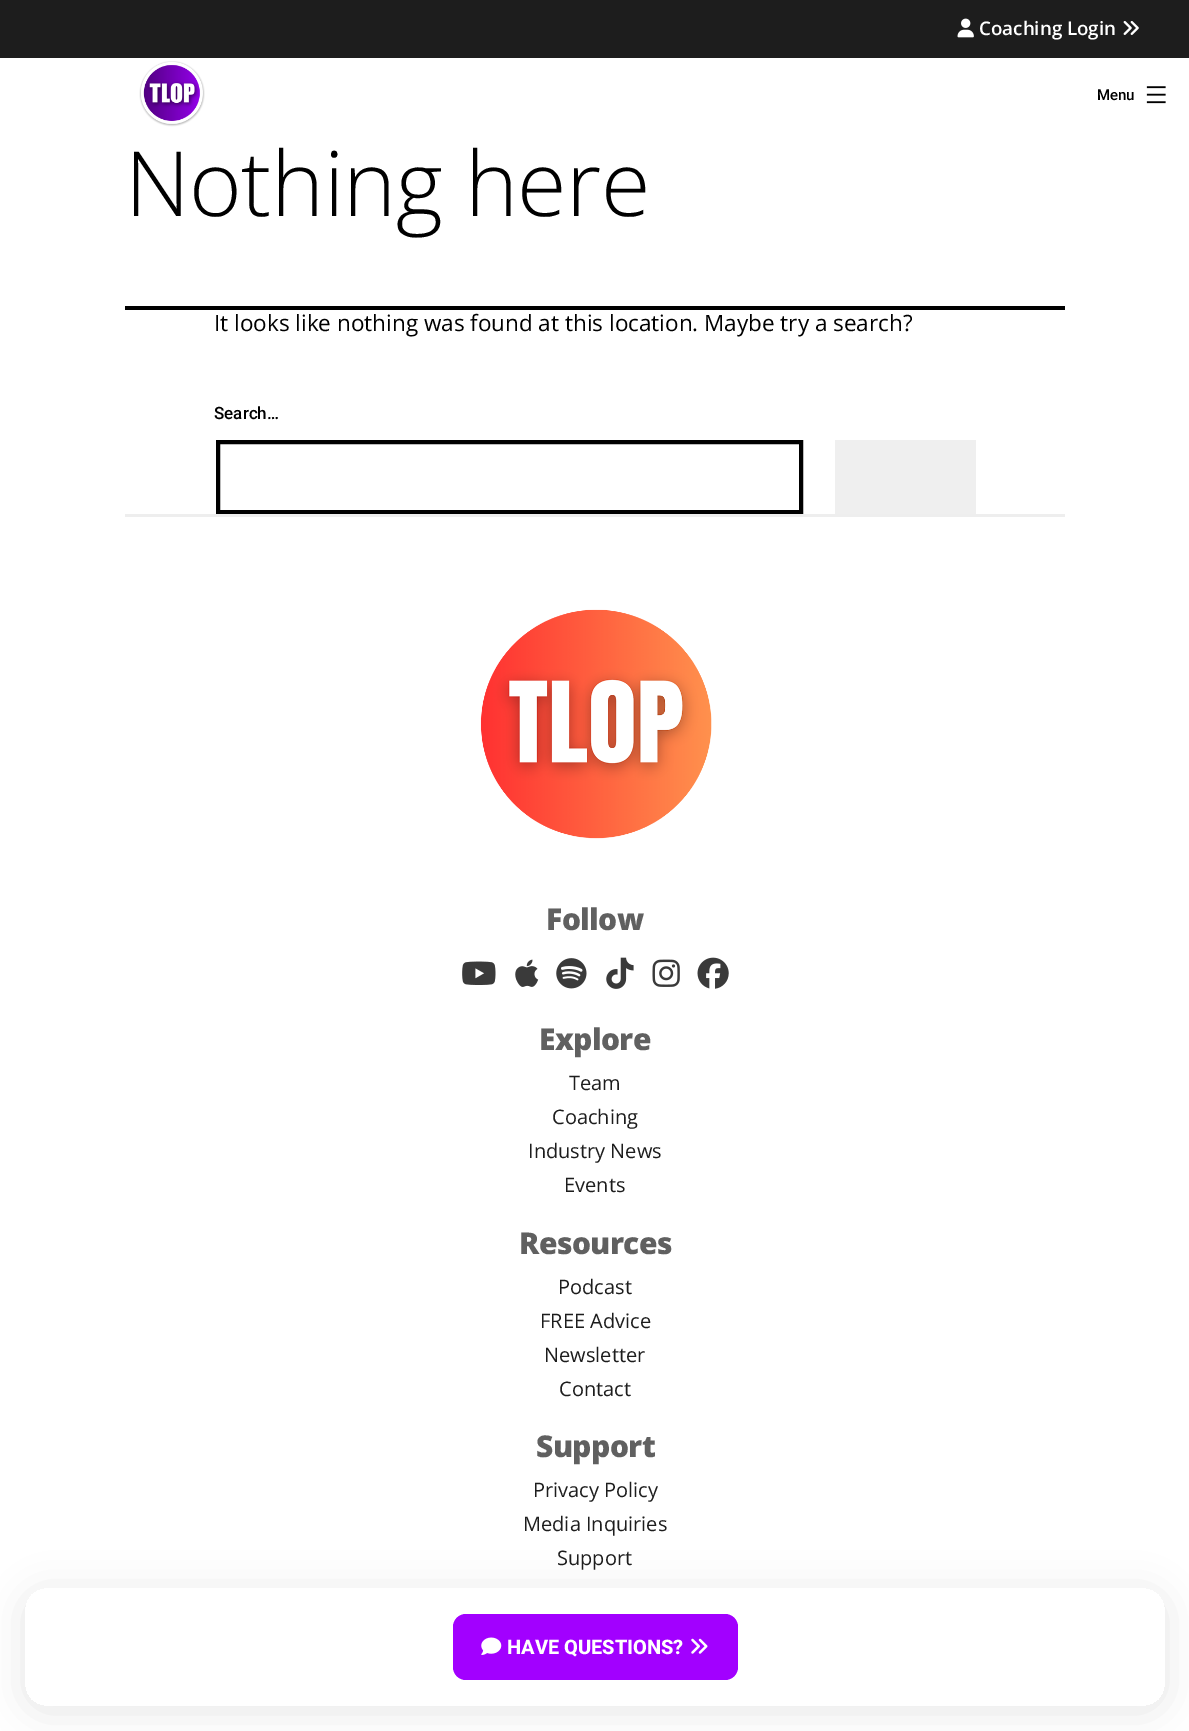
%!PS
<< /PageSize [1189 1731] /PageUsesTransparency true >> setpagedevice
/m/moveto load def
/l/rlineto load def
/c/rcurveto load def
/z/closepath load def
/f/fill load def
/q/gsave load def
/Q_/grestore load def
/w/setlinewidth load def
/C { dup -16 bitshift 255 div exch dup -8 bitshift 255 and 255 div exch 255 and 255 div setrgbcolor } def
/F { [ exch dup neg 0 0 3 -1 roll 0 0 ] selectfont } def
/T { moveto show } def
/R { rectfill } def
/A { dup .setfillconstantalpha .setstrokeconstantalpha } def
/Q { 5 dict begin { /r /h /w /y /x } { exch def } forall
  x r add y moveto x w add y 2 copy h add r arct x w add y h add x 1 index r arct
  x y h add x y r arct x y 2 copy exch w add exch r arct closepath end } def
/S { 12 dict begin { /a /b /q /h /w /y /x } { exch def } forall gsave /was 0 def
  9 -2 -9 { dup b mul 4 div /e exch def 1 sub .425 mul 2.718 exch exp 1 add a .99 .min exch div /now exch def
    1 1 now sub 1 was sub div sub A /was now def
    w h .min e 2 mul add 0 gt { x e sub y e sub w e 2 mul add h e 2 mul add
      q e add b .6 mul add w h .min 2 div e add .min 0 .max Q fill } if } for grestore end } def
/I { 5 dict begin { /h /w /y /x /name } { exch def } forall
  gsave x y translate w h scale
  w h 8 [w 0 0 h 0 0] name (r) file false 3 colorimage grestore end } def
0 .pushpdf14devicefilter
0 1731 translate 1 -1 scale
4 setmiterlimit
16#FFFFFF C
0 0 1189 1731 R
16#1D1D1D C
0 0 1189 58 R
(1.rgb) 957 18 17 20 I
/OpenSans-SemiBold 18.75 F
16#FFFFFF C
(Coaching Login) 979 35 T
(2.rgb) 1123 21 16 14 I
(3.rgb) 139 61 66 66 I
/Roboto-Medium 15 F
16#000000 C
(Menu) 1097 100 T
(4.rgb) 1146 86 20 18 I
q
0 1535 m 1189 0 l 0 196 l -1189 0 l z 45 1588 m 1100 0 l 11 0 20 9 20 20 c 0 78 l 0 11 -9 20 -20 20 c -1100 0 l -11 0 -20 -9 -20 -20 c 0 -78 l 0 -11 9 -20 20 -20 c z eoclip newpath
25 1593 1140 118 20 19 .1 S
Q_
16#A200FF C
453 1614 285 66 13 Q f
(5.rgb) 481 1637 21 18 I
/Roboto-ExtraBold 20 F
16#FFFFFF C
(HAVE QUESTIONS?) 507 1654 T
(6.rgb) 691 1638 17 16 I
16#000000 C
125 306 940 4 R
/OpenSans-Light 90 F
125 216 m -.6 0 (Nothing here) ashow
/OpenSans-Regular 22.5 F
(It looks like nothing was found at this location. Maybe try a search?) 214 331 T
/Roboto-Medium 17 F
(Search…) 214 419 T
4 w
218 442 583 70 rectstroke
16#EFEFEF C
835 440 141 74 R
16#EEEEEE C
125 514 940 3 R
(7.rgb) 480 609 232 230 I
/OpenSans-ExtraBold 30 F
16#606060 C
546 930 m -.6 0 (Follow) ashow
(8.rgb) 462 961 34 24 I
(9.rgb) 515 959 24 28 I
(10.rgb) 556 958 31 31 I
(11.rgb) 606 957 28 32 I
(12.rgb) 652 959 28 28 I
(13.rgb) 697 957 32 32 I
539 1050 m -.6 0 (Explore) ashow
/OpenSans-Regular 20 F
16#1D1D1D C
(Team) 569 1090 T
(Coaching) 552 1124 T
(Industry News) 528 1158 T
(Events) 564 1192 T
/OpenSans-ExtraBold 30 F
16#606060 C
519 1254 m -.6 0 (Resources) ashow
/OpenSans-Regular 20 F
16#1D1D1D C
(Podcast) 558 1294 T
(FREE Advice) 540 1328 T
(Newsletter) 544 1362 T
(Contact) 559 1396 T
/OpenSans-ExtraBold 30 F
16#606060 C
536 1457 m -.6 0 (Support) ashow
/OpenSans-Regular 20 F
16#1D1D1D C
(Privacy Policy) 533 1497 T
(Media Inquiries) 523 1531 T
(Support) 557 1565 T
.poppdf14devicefilter showpage
